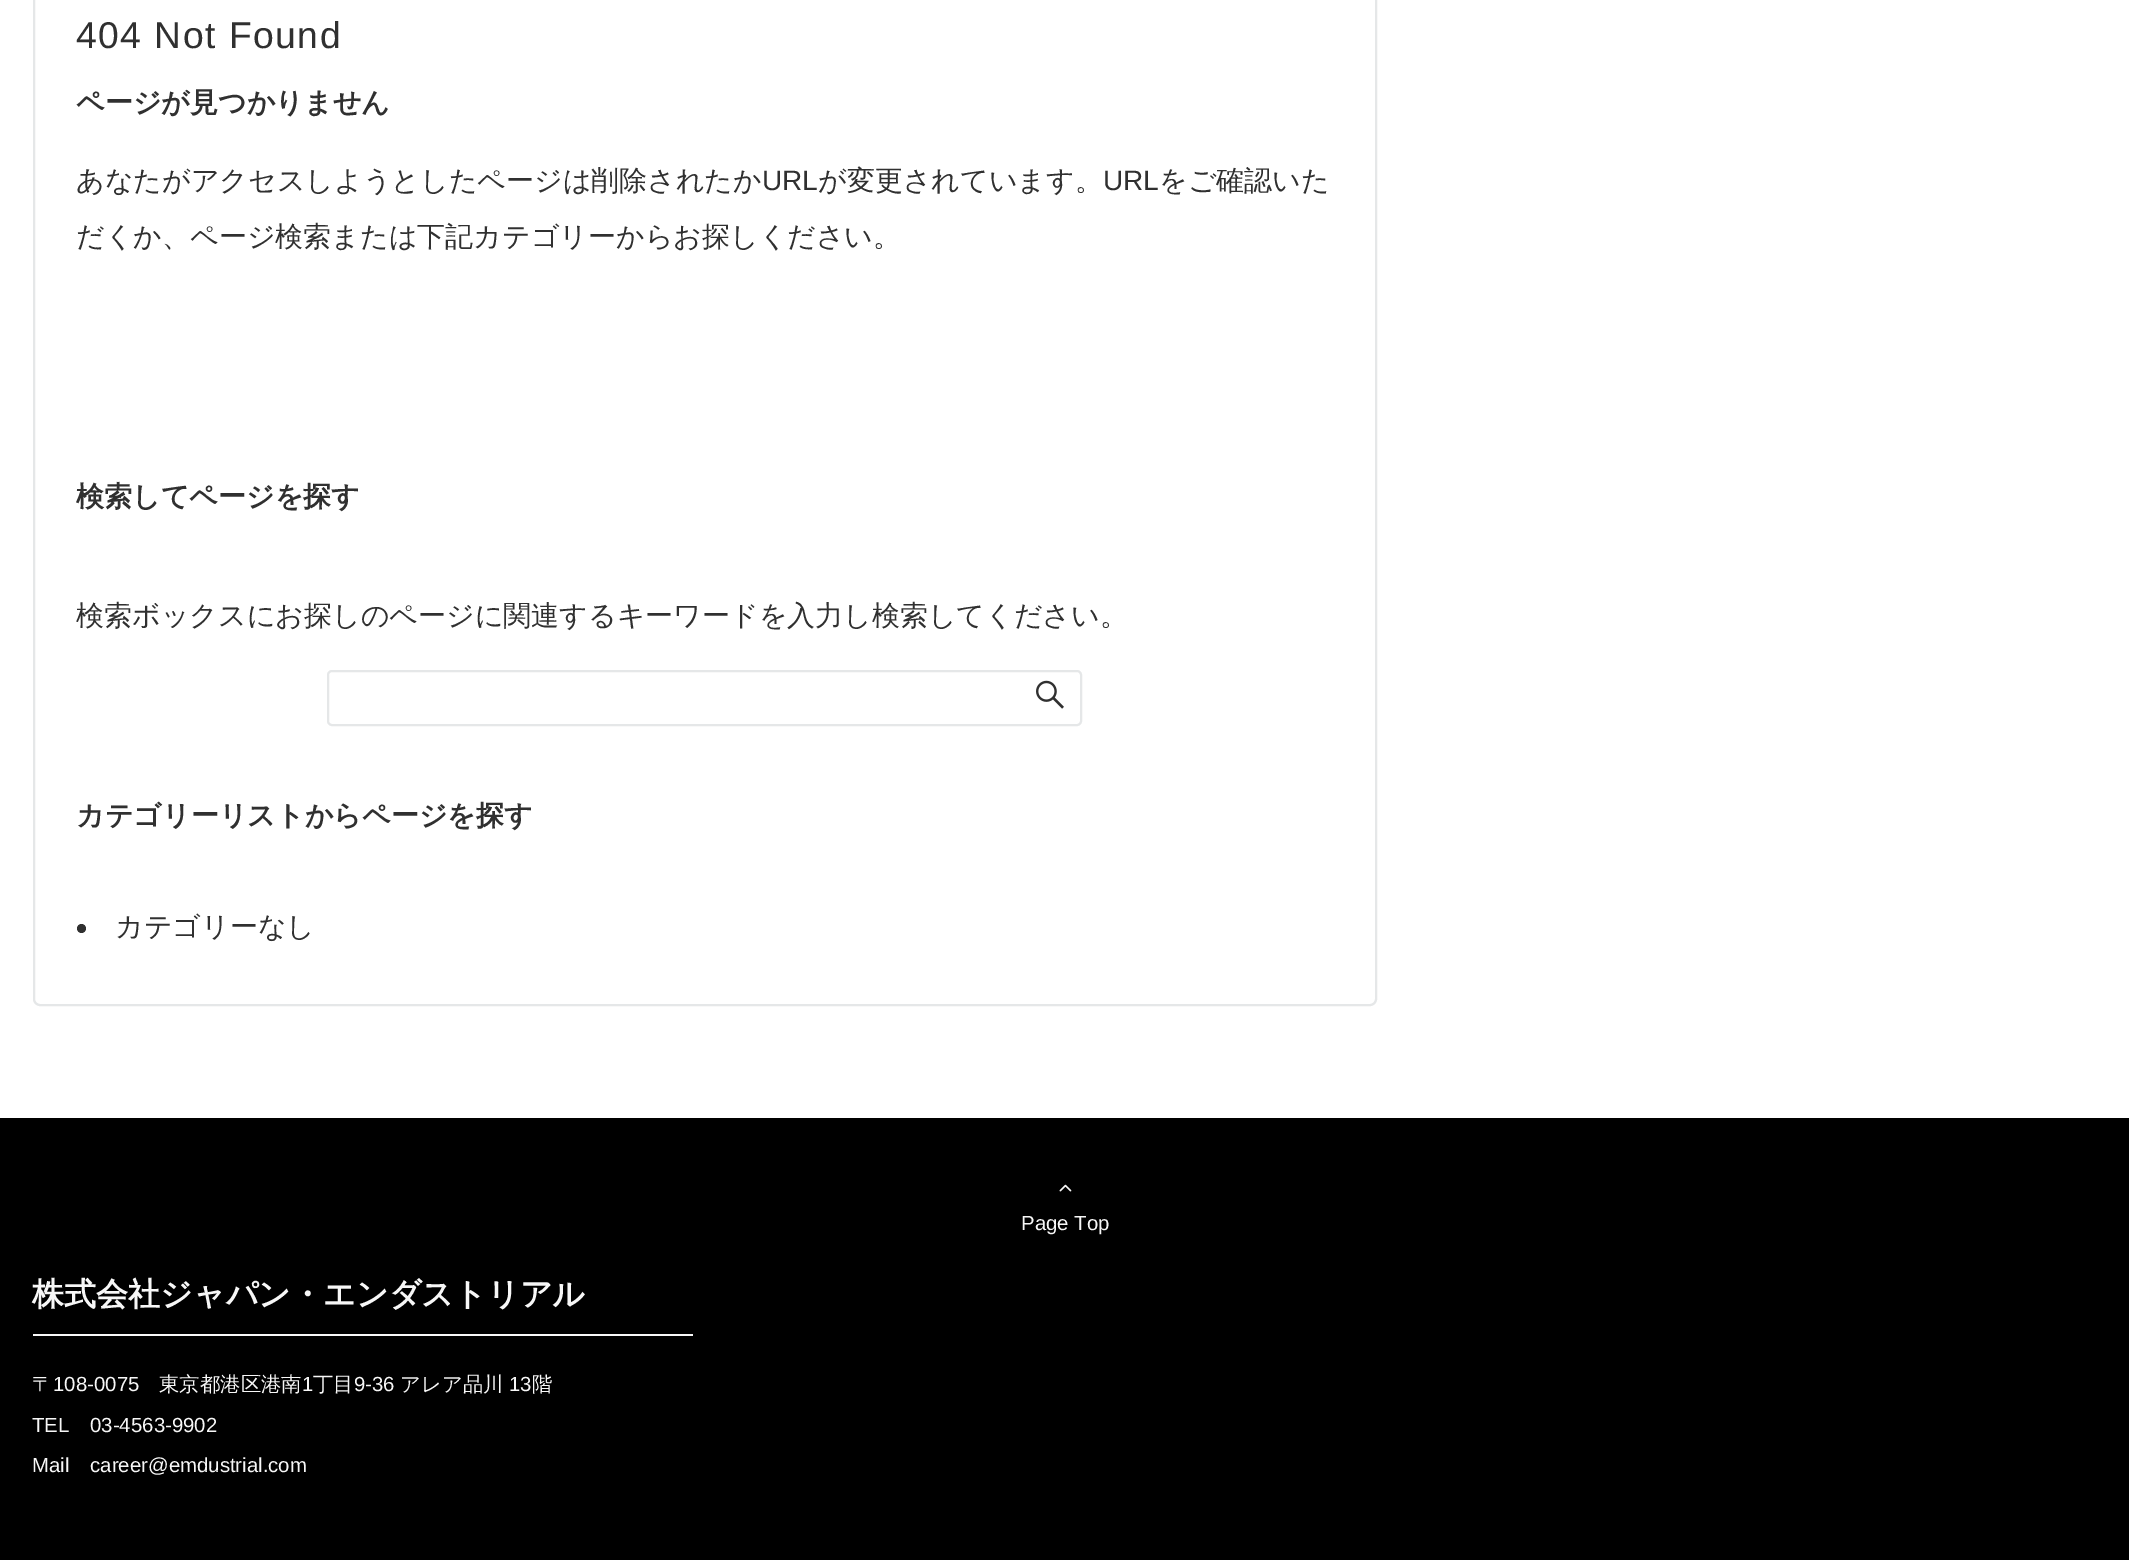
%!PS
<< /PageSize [2129 1560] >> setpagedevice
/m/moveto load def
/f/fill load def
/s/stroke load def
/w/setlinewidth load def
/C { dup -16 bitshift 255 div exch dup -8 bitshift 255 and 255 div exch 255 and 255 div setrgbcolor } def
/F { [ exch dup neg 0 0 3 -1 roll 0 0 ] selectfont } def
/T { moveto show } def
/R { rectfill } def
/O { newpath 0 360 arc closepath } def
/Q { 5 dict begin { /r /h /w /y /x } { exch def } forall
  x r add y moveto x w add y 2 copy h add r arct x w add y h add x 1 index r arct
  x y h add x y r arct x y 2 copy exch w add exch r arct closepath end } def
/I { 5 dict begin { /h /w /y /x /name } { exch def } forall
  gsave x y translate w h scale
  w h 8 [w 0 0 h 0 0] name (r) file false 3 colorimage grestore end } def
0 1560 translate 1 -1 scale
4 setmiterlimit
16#FFFFFF C
0 0 2129 1560 R
16#E5E7E8 C
2 w
34 -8 1342 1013 6 Q s
/LiberationSans-Regular 37.25 F
16#303030 C
76 48 m 1.5 0 (404 Not Found) ashow
/WenQuanYiZenHei-Bold 28 F
(ページが見つかりません) 76 112 T
/WenQuanYiZenHei-Medium 28 F
(あなたがアクセスしようとしたページは削除されたか) 76 190 T
/LiberationSans-Regular 28 F
(URL) 762 190 T
/WenQuanYiZenHei-Medium 28 F
(が変更されています。) 818 190 T
/LiberationSans-Regular 28 F
(URL) 1103 190 T
/WenQuanYiZenHei-Medium 28 F
(をご確認いた) 1159 190 T
(だくか、ページ検索または下記カテゴリーからお探しください。) 76 246 T
/WenQuanYiZenHei-Bold 28 F
(検索してページを探す) 76 506 T
/WenQuanYiZenHei-Medium 28 F
(検索ボックスにお探しのページに関連するキーワードを入力し検索してください。) 76 625 T
16#E5E7E8 C
328 671 753 54 4 Q s
(1.rgb) 1036 680 28 29 I
/WenQuanYiZenHei-Bold 28 F
16#303030 C
(カテゴリーリストからページを探す) 76 825 T
81.5 928.5 4.5 O f
/WenQuanYiZenHei-Medium 28 F
(カテゴリーなし) 115 936 T
16#000000 C
0 1118 2129 442 R
(2.rgb) 1059 1184 13 8 I
/LiberationSans-Regular 20.4 F
16#F7F7F7 C
(Page Top) 1021 1230 T
33 1334 660 2 R
/WenQuanYiZenHei-Bold 32 F
(株式会社ジャパン・エンダストリアル) 32 1305 T
/WenQuanYiZenHei-Medium 20.4 F
(〒) 32 1391 T
/LiberationSans-Regular 20.4 F
(108-0075) 53 1391 T
/WenQuanYiZenHei-Medium 20.4 F
(東京都港区港南) 159 1391 T
/LiberationSans-Regular 20.4 F
(1) 302 1391 T
/WenQuanYiZenHei-Medium 20.4 F
(丁目) 313 1391 T
/LiberationSans-Regular 20.4 F
(9-36) 354 1391 T
/WenQuanYiZenHei-Medium 20.4 F
(アレア品川) 400 1391 T
/LiberationSans-Regular 20.4 F
(13) 509 1391 T
/WenQuanYiZenHei-Medium 20.4 F
(階) 532 1391 T
/LiberationSans-Regular 20.4 F
(TEL) 32 1432 T
(03-4563-9902) 90 1432 T
(Mail) 32 1472 T
(career@emdustrial.com) 90 1472 T
showpage
